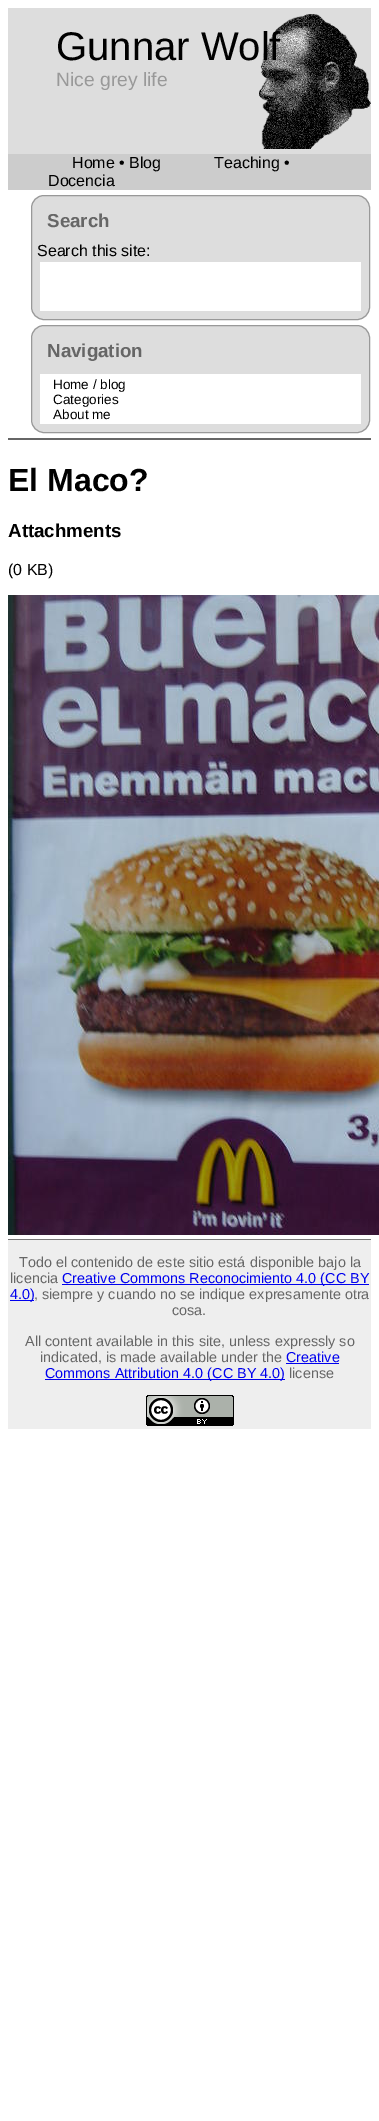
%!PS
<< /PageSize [379 2121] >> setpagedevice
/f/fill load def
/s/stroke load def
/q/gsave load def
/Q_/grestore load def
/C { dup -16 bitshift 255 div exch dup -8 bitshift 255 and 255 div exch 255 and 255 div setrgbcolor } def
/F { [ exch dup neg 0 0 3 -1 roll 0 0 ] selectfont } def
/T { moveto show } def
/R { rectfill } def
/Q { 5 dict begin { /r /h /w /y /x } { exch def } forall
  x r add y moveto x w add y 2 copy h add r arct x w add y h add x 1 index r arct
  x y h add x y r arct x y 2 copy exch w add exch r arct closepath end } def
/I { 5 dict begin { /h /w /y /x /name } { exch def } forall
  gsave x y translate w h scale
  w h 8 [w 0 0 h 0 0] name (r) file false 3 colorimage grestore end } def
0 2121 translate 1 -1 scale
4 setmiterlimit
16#FFFFFF C
0 0 379 2121 R
16#DDDDDD C
8 8 363 146 R
(1.rgb) 259 14 112 135 I
/LiberationSans-Regular 40 F
16#000000 C
(Gunnar Wolf) 56 60 T
/LiberationSans-Regular 19.25 F
16#999999 C
(Nice grey life) 56 86 T
16#CCCCCC C
8 154 363 36 R
/LiberationSans-Regular 16 F
16#000000 C
(Home • Blog) 72 168 T
(Teaching •) 214 168 T
(Docencia) 48 186 T
16#666666 C
8 438 363 2 R
16#DDDDDD C
31.5 195.5 338 124 12.5 Q q f Q_
16#999999 C
s
/LiberationSans-Bold 18.75 F
16#666666 C
(Search) 47 227 T
/LiberationSans-Regular 16 F
16#000000 C
(Search this site:) 37 256 T
16#FFFFFF C
40 262 321 49 R
16#DDDDDD C
31.5 325.5 338 107 12.5 Q q f Q_
16#999999 C
s
/LiberationSans-Bold 18.75 F
16#666666 C
(Navigation) 47 357 T
16#FFFFFF C
40 374 321 50 R
/LiberationSans-Regular 13.5 F
16#000000 C
(Home / blog) 53 389 T
(Categories) 53 404 T
(About me) 53 419 T
/LiberationSans-Bold 32 F
(El Maco?) 8 491 T
/LiberationSans-Bold 18.75 F
(Attachments) 8 537 T
/LiberationSans-Regular 16 F
(\(0 KB\)) 8 575 T
(2.rgb) 8 595 371 640 I
16#EEEEEE C
8 1240 363 189 R
16#777777 C
8 1239 363 1 R
/LiberationSans-Regular 14.4 F
16#666666 C
(Todo el contenido de este sitio está disponible bajo la) 19 1267 T
(licencia) 10 1283 T
16#0000EE C
62 1284 307 1 R
(Creative Commons Reconocimiento 4.0 \(CC BY) 62 1283 T
10 1300 24 1 R
(4.0\)) 10 1299 T
16#666666 C
(, siempre y cuando no se indique expresamente otra) 34 1299 T
(cosa.) 172 1315 T
(All content available in this site, unless expressly so) 25 1346 T
(indicated, is made available under the) 40 1362 T
16#0000EE C
(Creative) 286 1362 T
286 1363 53 1 R
45 1379 240 1 R
(Commons Attribution 4.0 \(CC BY 4.0\)) 45 1378 T
16#666666 C
(license) 289 1378 T
(3.rgb) 146 1395 88 31 I
showpage
